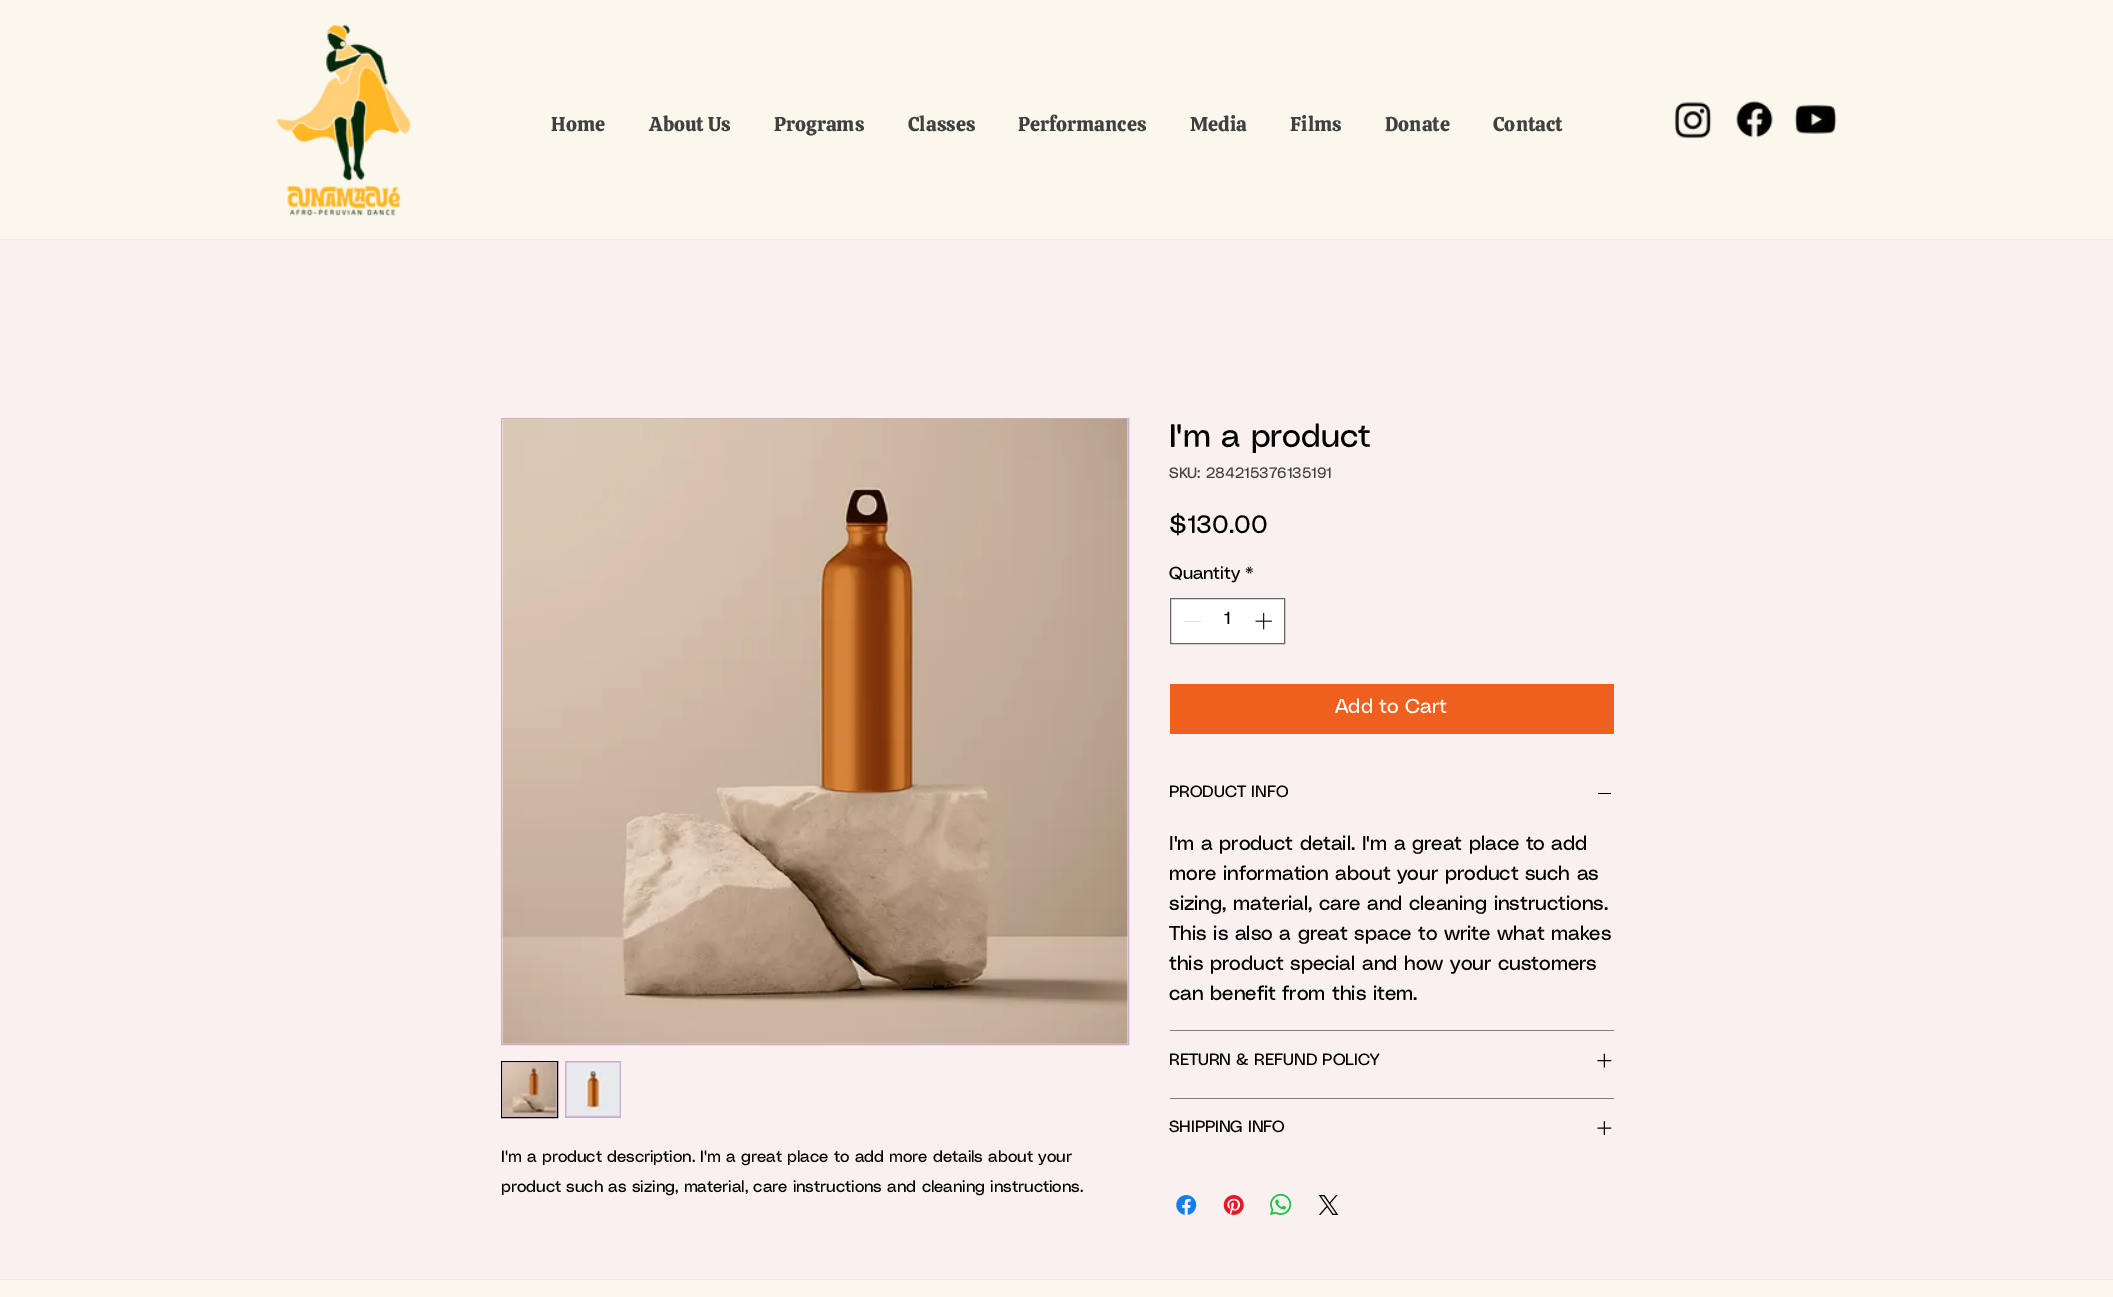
%!PS
<< /PageSize [2113 1297] >> setpagedevice
/m/moveto load def
/l/rlineto load def
/z/closepath load def
/f/fill load def
/s/stroke load def
/q/gsave load def
/Q_/grestore load def
/C { dup -16 bitshift 255 div exch dup -8 bitshift 255 and 255 div exch 255 and 255 div setrgbcolor } def
/F { [ exch dup neg 0 0 3 -1 roll 0 0 ] selectfont } def
/T { moveto show } def
/R { rectfill } def
/I { 5 dict begin { /h /w /y /x /name } { exch def } forall
  gsave x y translate w h scale
  w h 8 [w 0 0 h 0 0] name (r) file false 3 colorimage grestore end } def
0 1297 translate 1 -1 scale
4 setmiterlimit
16#FAF0F0 C
0 0 2113 1297 R
16#F6E8D3 C
0 239 2113 1 R
16#FBF7ED C
0 0 2113 239 R
(1.rgb) 276 24 135 192 I
/Calistoga-Regular 20 F
16#404040 C
(Home) 551 131 T
(About Us) 649 131 T
(Programs) 774 131 T
(Classes) 908 131 T
(Performances) 1018 131 T
(Media) 1190 131 T
(Films) 1290 131 T
(Donate) 1385 131 T
(Contact) 1493 131 T
(2.rgb) 1674 102 38 37 I
(3.rgb) 1736 101 37 37 I
(4.rgb) 1795 104 42 30 I
/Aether-Regular 32.5 F
16#000000 C
(I'm a product) 1169 447 T
/Aether-Regular 15 F
16#404040 C
(SKU: 284215376135191) 1169 478 T
/Aether-Regular 25 F
16#000000 C
($130.00) 1169 533 T
/Aether-Regular 17.5 F
(Quantity) 1169 579 T
(*) 1245 579 T
16#FFFFFF C
1170.5 598.5 m 114 0 l 0 45 l -114 0 l z q f Q_
16#666666 C
s
16#E3E3E3 C
1184 621 17 1 R
16#000000 C
(1) 1224 624 T
(5.rgb) 1255 612 17 18 I
16#EF601E C
1170 684 444 50 R
/Aether-Regular 20 F
16#FFFFFF C
(Add to Cart) 1335 713 T
16#808080 C
1170 1030 444 1 R
/Aether-Regular 16.25 F
16#000000 C
(PRODUCT INFO) 1169 797 T
1598 793 13 1 R
/Aether-Regular 20 F
(I'm a product detail. I'm a great place to add) 1169 850 T
(more information about your product such as) 1169 880 T
(sizing, material, care and cleaning instructions.) 1169 910 T
(This is also a great space to write what makes) 1169 940 T
(this product special and how your customers) 1169 970 T
(can benefit from this item.) 1169 1000 T
16#808080 C
1170 1098 444 1 R
/Aether-Regular 16.25 F
16#000000 C
(RETURN & REFUND POLICY) 1169 1065 T
(6.rgb) 1597 1053 15 15 I
(SHIPPING INFO) 1169 1132 T
(7.rgb) 1597 1121 15 14 I
(8.rgb) 1176 1195 21 20 I
(9.rgb) 1223 1195 21 20 I
(10.rgb) 1270 1193 22 23 I
(11.rgb) 1318 1195 21 20 I
16#CAAACD C
501.5 418.5 627 626 rectstroke
(12.rgb) 502 418 626 626 I
501.5 1061.5 m 56 0 l 0 56 l -56 0 l z q f Q_
16#000000 C
s
(13.rgb) 502 1062 55 55 I
16#CAAACD C
565 1061 56 57 R
(14.rgb) 566 1062 55 55 I
16#000000 C
(I'm a product description. I'm a great place to add more details about your) 501 1162 T
(product such as sizing, material, care instructions and cleaning instructions.) 501 1192 T
16#F6E8D3 C
0 1279 2113 1 R
16#FBF7ED C
0 1280 2113 17 R
showpage
